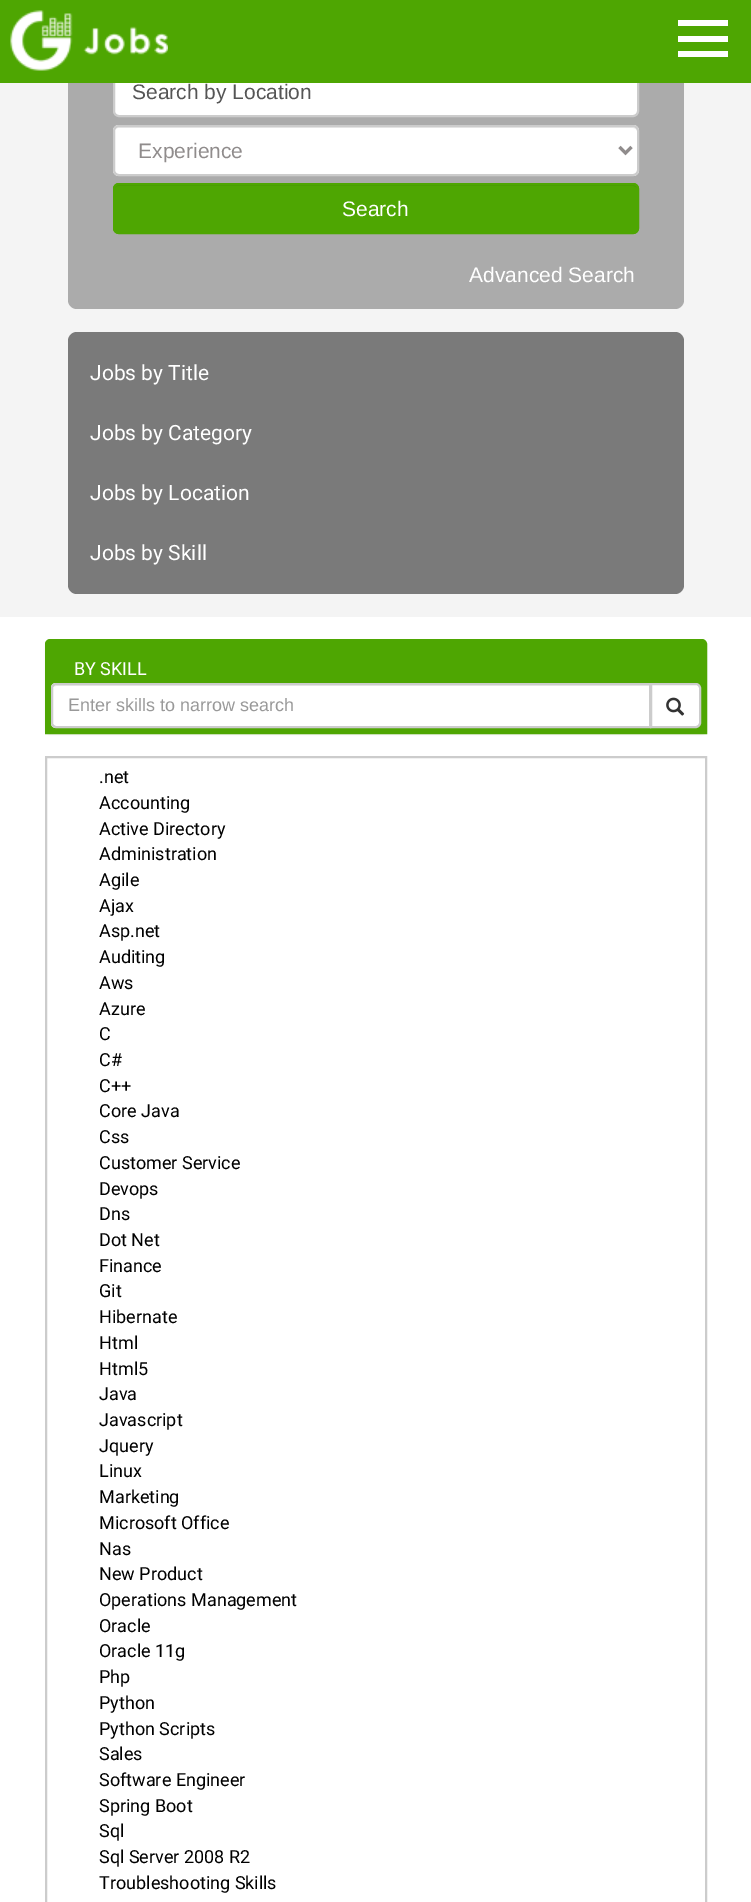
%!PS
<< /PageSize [751 1902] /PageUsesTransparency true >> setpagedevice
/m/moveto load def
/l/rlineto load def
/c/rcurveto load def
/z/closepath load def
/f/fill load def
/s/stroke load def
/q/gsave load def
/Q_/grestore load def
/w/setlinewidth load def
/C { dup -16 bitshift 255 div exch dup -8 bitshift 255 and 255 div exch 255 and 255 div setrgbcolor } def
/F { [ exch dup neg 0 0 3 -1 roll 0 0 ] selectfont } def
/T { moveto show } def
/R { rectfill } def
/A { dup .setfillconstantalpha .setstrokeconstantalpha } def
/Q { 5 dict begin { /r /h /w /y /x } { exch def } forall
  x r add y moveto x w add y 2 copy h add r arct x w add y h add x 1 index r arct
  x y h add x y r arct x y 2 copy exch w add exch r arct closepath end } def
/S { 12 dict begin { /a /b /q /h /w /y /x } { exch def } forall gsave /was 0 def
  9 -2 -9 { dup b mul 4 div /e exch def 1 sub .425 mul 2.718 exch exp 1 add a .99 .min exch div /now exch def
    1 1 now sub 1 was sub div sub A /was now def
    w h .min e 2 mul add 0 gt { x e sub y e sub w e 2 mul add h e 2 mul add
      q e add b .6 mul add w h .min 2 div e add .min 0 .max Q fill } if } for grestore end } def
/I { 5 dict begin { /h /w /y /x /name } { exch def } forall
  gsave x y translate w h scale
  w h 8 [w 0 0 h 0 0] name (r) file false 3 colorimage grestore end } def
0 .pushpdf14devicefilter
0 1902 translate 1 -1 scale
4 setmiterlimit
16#FFFFFF C
0 0 751 1902 R
16#F4F4F4 C
0 83 751 534 R
16#ABABAB C
68 -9 616 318 9 Q f
16#FFFFFF C
114 67 524 49 5 Q q f Q_
16#CCCCCC C
2 w
s
16#4EA602 C
0 0 751 83 R
(1.rgb) 10 10 158 61 I
16#FFFFFF C
678 20 50 6 R
678 36 50 6 R
678 51 50 6 R
/LiberationSans-Regular 21 F
16#555555 C
(Search by Location) 132 99 T
16#FFFFFF C
113 125 526 51 6 Q f
16#ECECEC C
118 128 m 515 0 l 2 0 5 2 5 4 c 0 -1 l 0 -3 -2 -5 -5 -5 c -514 0 l -3 0 -5 2 -5 5 c 0 1 l 0 -2 2 -4 4 -4 c z f
16#CCCCCC C
114 126 524 49 5 Q s
16#908C8C C
3 w
619.5 147 m 6 6 l 6 -6 l s
(Experience) 138 158 T
16#4EA602 C
113 183 526 51 6 Q f
16#489A02 C
118 186 m 515 0 l 2 0 5 2 5 4 c 0 -3 -2 -5 -5 -5 c -514 0 l -3 0 -5 2 -5 5 c 0 -2 2 -4 4 -4 c z f
16#4EA602 C
2 w
114 184 524 49 5 Q s
16#FFFFFF C
(Search) 342 216 T
(Advanced Search) 469 282 T
16#7A7A7A C
68 332 616 262 9 Q f
/Roboto-Regular 21 F
16#FFFFFF C
(Jobs by Title) 90 380 T
(Jobs by Category) 90 440 T
(Jobs by Location) 90 500 T
(Jobs by Skill) 90 560 T
16#000000 C
45 641 662 94 6 1 .05 S
16#4EA602 C
50 640 m 652 0 l 2 0 4 2 4 4 c 0 89 l -660 0 l 0 -89 l 0 -2 2 -4 4 -4 c z q f Q_
s
/Roboto-Regular 18 F
16#FFFFFF C
(BY SKILL) 74 675 T
56 683 m 595 0 l 0 45 l -595 0 l -3 0 -5 -2 -5 -5 c 0 -35 l 0 -3 2 -5 5 -5 c z f
16#ECECEC C
56 686 m 594 0 l 0 -2 l -594 0 l -2 0 -3 1 -3 3 c z f
16#CCCCCC C
56 684 m 594 0 l 0 43 l -594 0 l -2 0 -4 -2 -4 -4 c 0 -35 l 0 -2 2 -4 4 -4 c z s
/LiberationSans-Regular 18 F
16#999999 C
(Enter skills to narrow search) 68 711 T
16#FFFFFF C
651 684 m 45 0 l 2 0 4 2 4 4 c 0 35 l 0 2 -2 4 -4 4 c -45 0 l z q f Q_
16#CCCCCC C
s
(2.rgb) 666 697 19 19 I
46 757 660 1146 rectstroke
/Roboto-Regular 18 F
16#000000 C
(.net) 99 783 T
(Accounting) 99 809 T
(Active Directory) 99 835 T
(Administration) 99 860 T
(Agile) 99 886 T
(Ajax) 99 912 T
(Asp.net) 99 937 T
(Auditing) 99 963 T
(Aws) 99 989 T
(Azure) 99 1015 T
(C) 99 1040 T
(C#) 99 1066 T
(C++) 99 1092 T
(Core Java) 99 1117 T
(Css) 99 1143 T
(Customer Service) 99 1169 T
(Devops) 99 1195 T
(Dns) 99 1220 T
(Dot Net) 99 1246 T
(Finance) 99 1272 T
(Git) 99 1297 T
(Hibernate) 99 1323 T
(Html) 99 1349 T
(Html5) 99 1375 T
(Java) 99 1400 T
(Javascript) 99 1426 T
(Jquery) 99 1452 T
(Linux) 99 1477 T
(Marketing) 99 1503 T
(Microsoft Office) 99 1529 T
(Nas) 99 1555 T
(New Product) 99 1580 T
(Operations Management) 99 1606 T
(Oracle) 99 1632 T
(Oracle 11g) 99 1657 T
(Php) 99 1683 T
(Python) 99 1709 T
(Python Scripts) 99 1735 T
(Sales) 99 1760 T
(Software Engineer) 99 1786 T
(Spring Boot) 99 1812 T
(Sql) 99 1837 T
(Sql Server 2008 R2) 99 1863 T
(Troubleshooting Skills) 99 1889 T
.poppdf14devicefilter showpage
